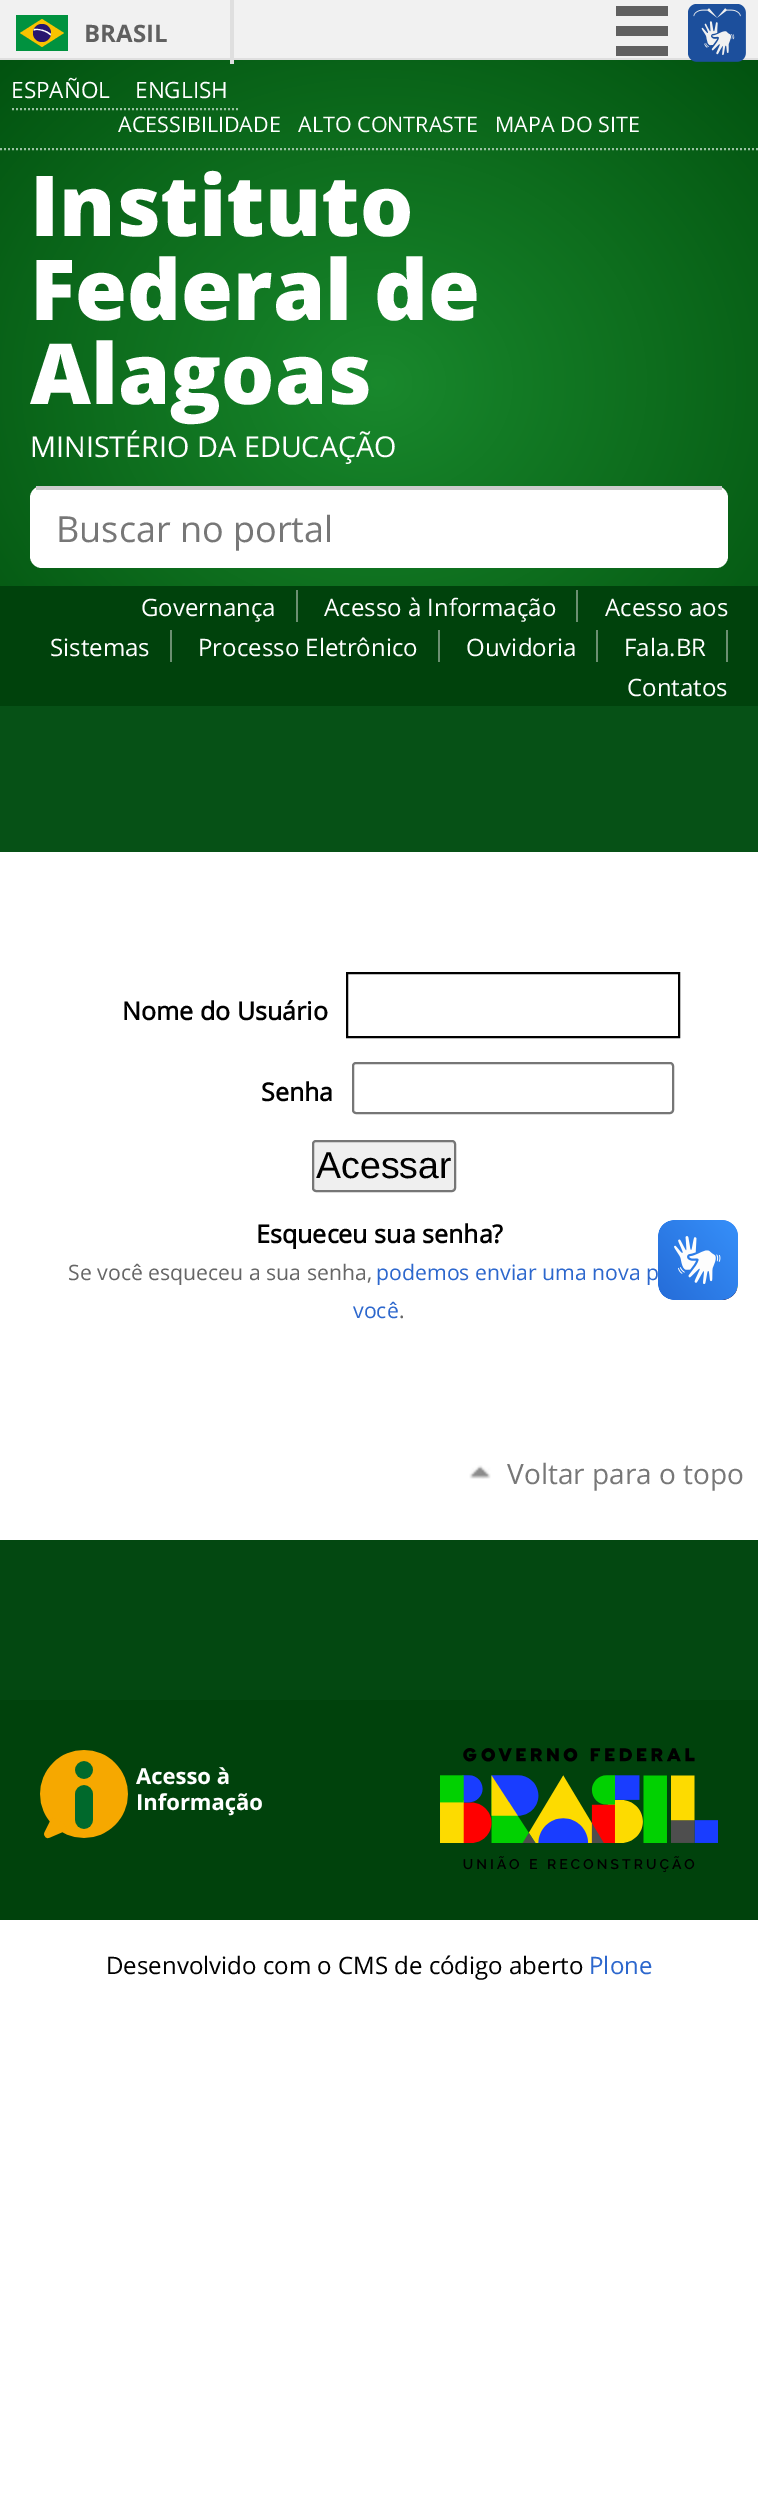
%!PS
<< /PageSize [758 2520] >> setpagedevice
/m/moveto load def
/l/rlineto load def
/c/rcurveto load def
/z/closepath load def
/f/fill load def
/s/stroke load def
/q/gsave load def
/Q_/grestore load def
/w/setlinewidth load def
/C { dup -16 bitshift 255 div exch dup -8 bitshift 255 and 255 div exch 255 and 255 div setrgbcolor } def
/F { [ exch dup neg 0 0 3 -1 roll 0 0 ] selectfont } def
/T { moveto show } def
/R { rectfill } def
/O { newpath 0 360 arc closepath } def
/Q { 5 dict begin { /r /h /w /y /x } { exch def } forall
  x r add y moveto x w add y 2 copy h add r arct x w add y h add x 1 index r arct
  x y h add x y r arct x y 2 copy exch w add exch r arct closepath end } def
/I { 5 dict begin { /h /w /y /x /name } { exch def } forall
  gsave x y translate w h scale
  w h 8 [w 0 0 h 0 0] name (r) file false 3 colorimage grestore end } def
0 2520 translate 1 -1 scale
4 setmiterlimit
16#FFFFFF C
0 0 758 2520 R
16#F1F1F1 C
0 0 758 58 R
16#DFDFDF C
0 58 758 2 R
q 0 60 m 758 0 l 0 526 l -758 0 l z clip newpath 379 383 translate 536 457 scale
<< /ShadingType 3 /ColorSpace /DeviceRGB /Coords [0 0 0 0 0 1] /Extend [true true] /Function << /FunctionType 3 /Domain [0 1] /Functions [<< /FunctionType 2 /Domain [0 1] /C0 [.098 .533 .173] /C1 [.098 .533 .173] /N 1 >> << /FunctionType 2 /Domain [0 1] /C0 [.098 .533 .173] /C1 [.008 .325 .063] /N 1 >>] /Bounds [.01] /Encode [0 1 0 1] >> >> shfill Q_
230 0 4 64 R
16#00923F C
16 15 52 36 R
16#F8C300 C
42 19 m -22 14 l 22 14 l 22 -14 l z f
16#28166F C
42 33 9 O f
16#FFFFFF C
36.5 30 m 5.5 0 10.5 2 14 5.5 c .5 -1.5 l -5 -4 -11 -5.5 -17 -5 c -.5 1.5 l z f
/OpenSans-Bold 24 F
16#606060 C
(BRASIL) 84 42 T
616 6 52 10 R
616 26 52 10 R
616 46 52 10 R
(1.rgb) 688 4 58 58 I
16#9BC2A3 C
2 w
[2 2] 0 setdash
12 109 m 226 0 l s
/OpenSans-Regular 22.5 F
16#FFFFFF C
(ESPAÑOL) 11 98 T
(ENGLISH) 135 98 T
16#9BC2A3 C
0 149 m 758 0 l s
/OpenSans-Regular 21.5 F
16#FFFFFF C
(ACESSIBILIDADE) 118 132 T
(ALTO CONTRASTE) 298 132 T
(MAPA DO SITE) 495 132 T
/OpenSans-ExtraBold 84 F
(Instituto) 30 236 T
(Federal de) 30 320 T
(Alagoas) 30 404 T
/OpenSans-Regular 28.75 F
(MINISTÉRIO DA EDUCAÇÃO) 30 457 T
30 486 698 82 12 Q f
16#CCCCCC C
36 486 686 4 R
/OpenSans-Regular 36 F
16#777777 C
(Buscar no portal) 56 542 T
16#00420C C
0 586 758 120 R
/OpenSans-Regular 24 F
16#FFFFFF C
(Governança) 141 616 T
16#6C9072 C
296 590 2 32 R
16#FFFFFF C
(Acesso à Informação) 324 616 T
16#6C9072 C
576 590 2 32 R
16#FFFFFF C
(Acesso aos) 605 616 T
(Sistemas) 50 656 T
16#6C9072 C
170 630 2 32 R
16#FFFFFF C
(Processo Eletrônico) 198 656 T
16#6C9072 C
438 630 2 32 R
16#FFFFFF C
(Ouvidoria) 466 656 T
16#6C9072 C
596 630 2 32 R
16#FFFFFF C
(Fala.BR) 624 656 T
16#6C9072 C
726 630 2 32 R
16#FFFFFF C
(Contatos) 627 696 T
16#065116 C
0 706 758 146 R
/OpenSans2-Bold 25 F
16#000000 C
(Nome do Usuário) 122 1020 T
[] 0 setdash
347 973 332 64 rectstroke
(Senha) 261 1101 T
16#767676 C
353 1063 320 50 3 Q s
16#EFEFEF C
313 1141 142 50 3 Q q f Q_
16#767676 C
s
/LiberationSans-Regular 37.5 F
16#000000 C
(Acessar) 316 1178 T
/OpenSans2-Bold 25 F
(Esqueceu sua senha?) 256 1243 T
/OpenSans-Regular 21.25 F
16#666666 C
(Se você esqueceu a sua senha,) 68 1280 T
16#2C67CD C
(podemos enviar uma nova p) 376 1280 T
(você) 353 1318 T
16#666666 C
(.) 399 1318 T
(2.rgb) 469 1465 22 14 I
/OpenSans-Regular 28 F
16#777777 C
(Voltar para o topo) 507 1484 T
16#034811 C
0 1540 758 160 R
16#00420C C
0 1700 758 220 R
(3.rgb) 40 1750 222 89 I
(4.rgb) 440 1748 278 124 I
/OpenSans-Regular 24 F
16#000000 C
(Desenvolvido com o CMS de código aberto) 106 1974 T
16#2C67CD C
(Plone) 589 1974 T
(5.rgb) 658 1220 80 80 I
(6.rgb) 658 1220 80 80 I
showpage
